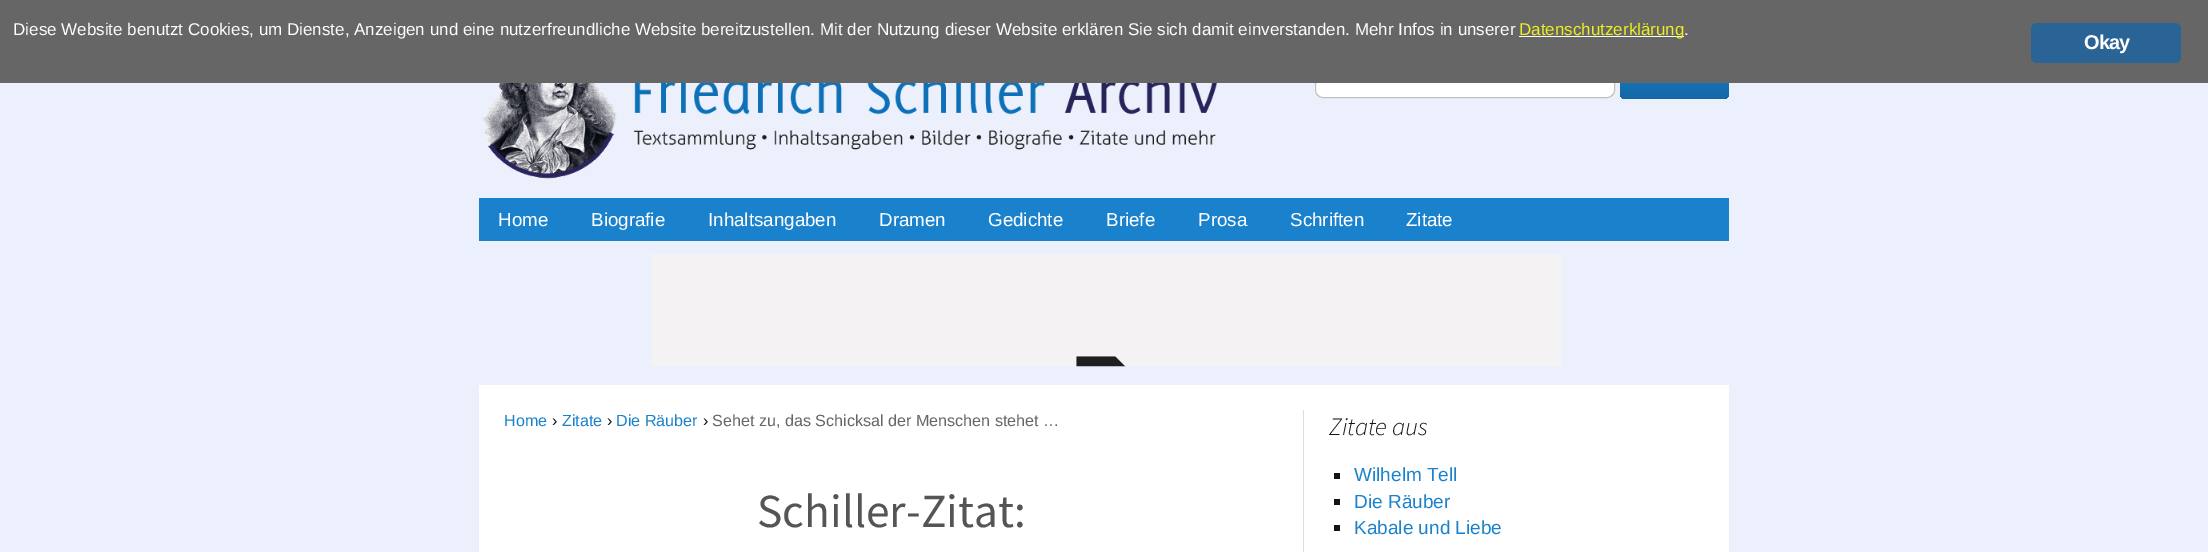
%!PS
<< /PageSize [2208 552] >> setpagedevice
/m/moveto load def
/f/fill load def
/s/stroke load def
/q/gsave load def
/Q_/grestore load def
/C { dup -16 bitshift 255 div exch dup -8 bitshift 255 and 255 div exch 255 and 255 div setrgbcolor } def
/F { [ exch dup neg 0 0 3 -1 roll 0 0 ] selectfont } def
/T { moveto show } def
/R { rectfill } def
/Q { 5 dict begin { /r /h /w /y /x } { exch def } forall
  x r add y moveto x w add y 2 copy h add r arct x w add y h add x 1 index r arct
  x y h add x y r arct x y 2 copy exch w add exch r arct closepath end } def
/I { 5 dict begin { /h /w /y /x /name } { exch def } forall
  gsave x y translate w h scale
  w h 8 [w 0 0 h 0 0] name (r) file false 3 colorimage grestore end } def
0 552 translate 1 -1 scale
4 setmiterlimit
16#EBF0FC C
0 0 2208 552 R
16#FFFFFF C
1315.5 54.5 299 43 7.5 Q q f Q_
16#C1C1C1 C
s
q 1620 53 109 46 6 Q clip newpath
<< /ShadingType 2 /ColorSpace /DeviceRGB /Coords [1674 53 1674 99] /Extend [true true] /Function << /FunctionType 2 /Domain [0 1] /C0 [.102 .51 .804] /C1 [.078 .408 .647] /N 1 >> >> shfill Q_
16#666666 C
0 0 2208 83 R
/LiberationSans-Regular 17 F
16#FFFFFF C
(Diese Website benutzt Cookies, um Dienste, Anzeigen und eine nutzerfreundliche Website bereitzustellen. Mit der Nutzung dieser Website erklären Sie sich damit einverstanden. Mehr Infos in unserer) 13 35 T
1519 36 165 1 R
16#EEEE22 C
(Datenschutzerklärung) 1519 35 T
16#FFFFFF C
(.) 1684 35 T
16#2A6496 C
2031 23 150 40 6 Q f
/LiberationSans-Bold 20 F
16#FFFFFF C
2084 49 m -1 0 (Okay) ashow
(1.rgb) 482 83 736 96 I
16#1A82CD C
479 198 1250 43 R
/LiberationSans-Regular 18.75 F
16#FFFFFF C
(Home) 498 226 T
(Biografie) 591 226 T
(Inhaltsangaben) 708 226 T
(Dramen) 879 226 T
(Gedichte) 988 226 T
(Briefe) 1106 226 T
(Prosa) 1198 226 T
(Schriften) 1290 226 T
(Zitate) 1406 226 T
(2.rgb) 651 254 910 113 I
479 385 1250 167 R
16#DDDDDD C
1303 410 1 142 R
/LiberationSans-Regular 16.15 F
16#1A82CD C
(Home) 504 426 T
16#141412 C
(›) 552 426 T
16#1A82CD C
(Zitate) 562 426 T
16#141412 C
(›) 607 426 T
16#1A82CD C
(Die Räuber) 616 426 T
16#141412 C
(›) 703 426 T
16#666666 C
(Sehet zu, das Schicksal der Menschen stehet …) 712 426 T
/SourceSansPro-Regular 47.5 F
16#555555 C
(Schiller-Zitat:) 757 527 T
/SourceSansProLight-LightItalic 25 F
16#141412 C
(Zitate aus) 1329 435 T
1334 473 6 6 R
/LiberationSans-Regular 19 F
16#1A82CD C
(Wilhelm Tell) 1354 481 T
16#141412 C
1334 499 6 6 R
16#1A82CD C
(Die Räuber) 1354 508 T
16#141412 C
1334 525 6 6 R
16#1A82CD C
(Kabale und Liebe) 1354 534 T
showpage
